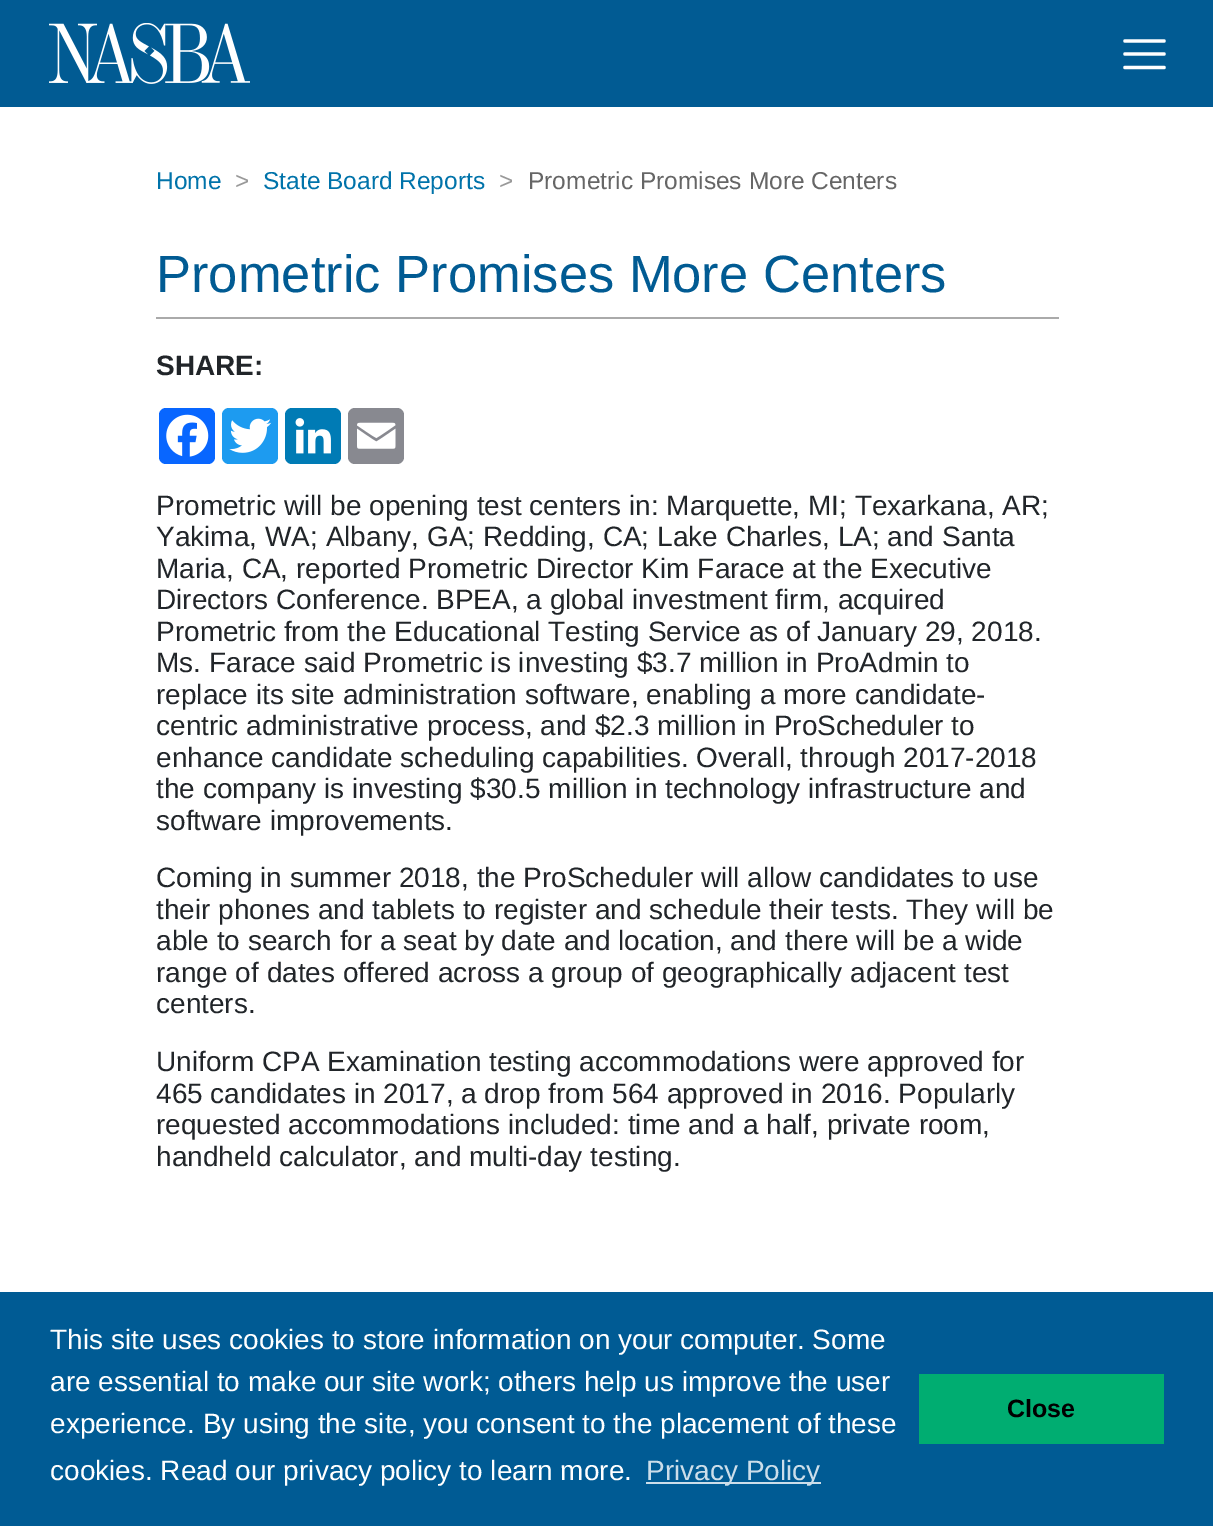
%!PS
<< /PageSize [1213 1526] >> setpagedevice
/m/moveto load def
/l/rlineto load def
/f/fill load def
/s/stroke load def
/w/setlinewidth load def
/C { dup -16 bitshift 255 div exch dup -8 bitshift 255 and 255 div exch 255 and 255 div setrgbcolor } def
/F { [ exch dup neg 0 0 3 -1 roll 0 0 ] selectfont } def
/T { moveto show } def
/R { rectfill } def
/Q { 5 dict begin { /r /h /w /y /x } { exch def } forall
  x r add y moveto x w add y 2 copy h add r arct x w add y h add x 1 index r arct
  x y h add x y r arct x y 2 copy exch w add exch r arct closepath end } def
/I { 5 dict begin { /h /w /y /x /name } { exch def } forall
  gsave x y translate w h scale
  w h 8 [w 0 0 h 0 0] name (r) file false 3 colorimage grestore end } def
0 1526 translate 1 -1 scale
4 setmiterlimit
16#FFFFFF C
0 0 1213 1526 R
16#015B93 C
0 0 1213 107 R
(1.rgb) 49 23 201 61 I
16#FFFFFF C
3.3 w
1 setlinecap
1125 41 m 39 0 l 1125 54 m 39 0 l 1125 67.5 m 39 0 l s
/LiberationSans-Regular 24.5 F
16#0073AA C
(Home) 156 189 T
16#999999 C
(>) 235 189 T
16#0073AA C
(State Board Reports) 263 189 T
16#999999 C
(>) 499 189 T
16#666666 C
(Prometric Promises More Centers) 528 189 T
16#AAAAAA C
156 317 903 2 R
/LiberationSans-Regular 52.5 F
16#015B93 C
(Prometric Promises More Centers) 156 292 T
/LiberationSans-Bold 28 F
16#212529 C
(SHARE:) 156 375 T
16#0866FF C
159 408 56 56 7 Q f
(2.rgb) 166 414 43 43 I
16#1D9BF0 C
222 408 56 56 7 Q f
(3.rgb) 229 418 43 35 I
16#007BB5 C
285 408 56 56 7 Q f
(4.rgb) 295 418 36 36 I
16#888990 C
348 408 56 56 7 Q f
(5.rgb) 357 422 39 27 I
/LiberationSans-Regular 28 F
16#212529 C
(Prometric will be opening test centers in: Marquette, MI; Texarkana, AR;) 156 515 T
(Yakima, WA; Albany, GA; Redding, CA; Lake Charles, LA; and Santa) 156 546 T
(Maria, CA, reported Prometric Director Kim Farace at the Executive) 156 578 T
(Directors Conference. BPEA, a global investment firm, acquired) 156 609 T
(Prometric from the Educational Testing Service as of January 29, 2018.) 156 641 T
(Ms. Farace said Prometric is investing $3.7 million in ProAdmin to) 156 672 T
(replace its site administration software, enabling a more candidate-) 156 704 T
(centric administrative process, and $2.3 million in ProScheduler to) 156 735 T
(enhance candidate scheduling capabilities. Overall, through 2017-2018) 156 767 T
(the company is investing $30.5 million in technology infrastructure and) 156 798 T
(software improvements.) 156 830 T
(Coming in summer 2018, the ProScheduler will allow candidates to use) 156 887 T
(their phones and tablets to register and schedule their tests. They will be) 156 919 T
(able to search for a seat by date and location, and there will be a wide) 156 950 T
(range of dates offered across a group of geographically adjacent test) 156 982 T
(centers.) 156 1013 T
(Uniform CPA Examination testing accommodations were approved for) 156 1071 T
(465 candidates in 2017, a drop from 564 approved in 2016. Popularly) 156 1103 T
(requested accommodations included: time and a half, private room,) 156 1134 T
(handheld calculator, and multi-day testing.) 156 1166 T
16#005B94 C
0 1292 1213 234 R
16#FFFFFF C
(This site uses cookies to store information on your computer. Some) 50 1349 T
(are essential to make our site work; others help us improve the user) 50 1391 T
(experience. By using the site, you consent to the placement of these) 50 1433 T
(cookies. Read our privacy policy to learn more.) 50 1480 T
16#CCDEEA C
646 1482 175 2 R
(Privacy Policy) 646 1480 T
16#00AD71 C
919 1374 245 70 R
/LiberationSans-Bold 25 F
16#000000 C
(Close) 1007 1417 T
showpage
